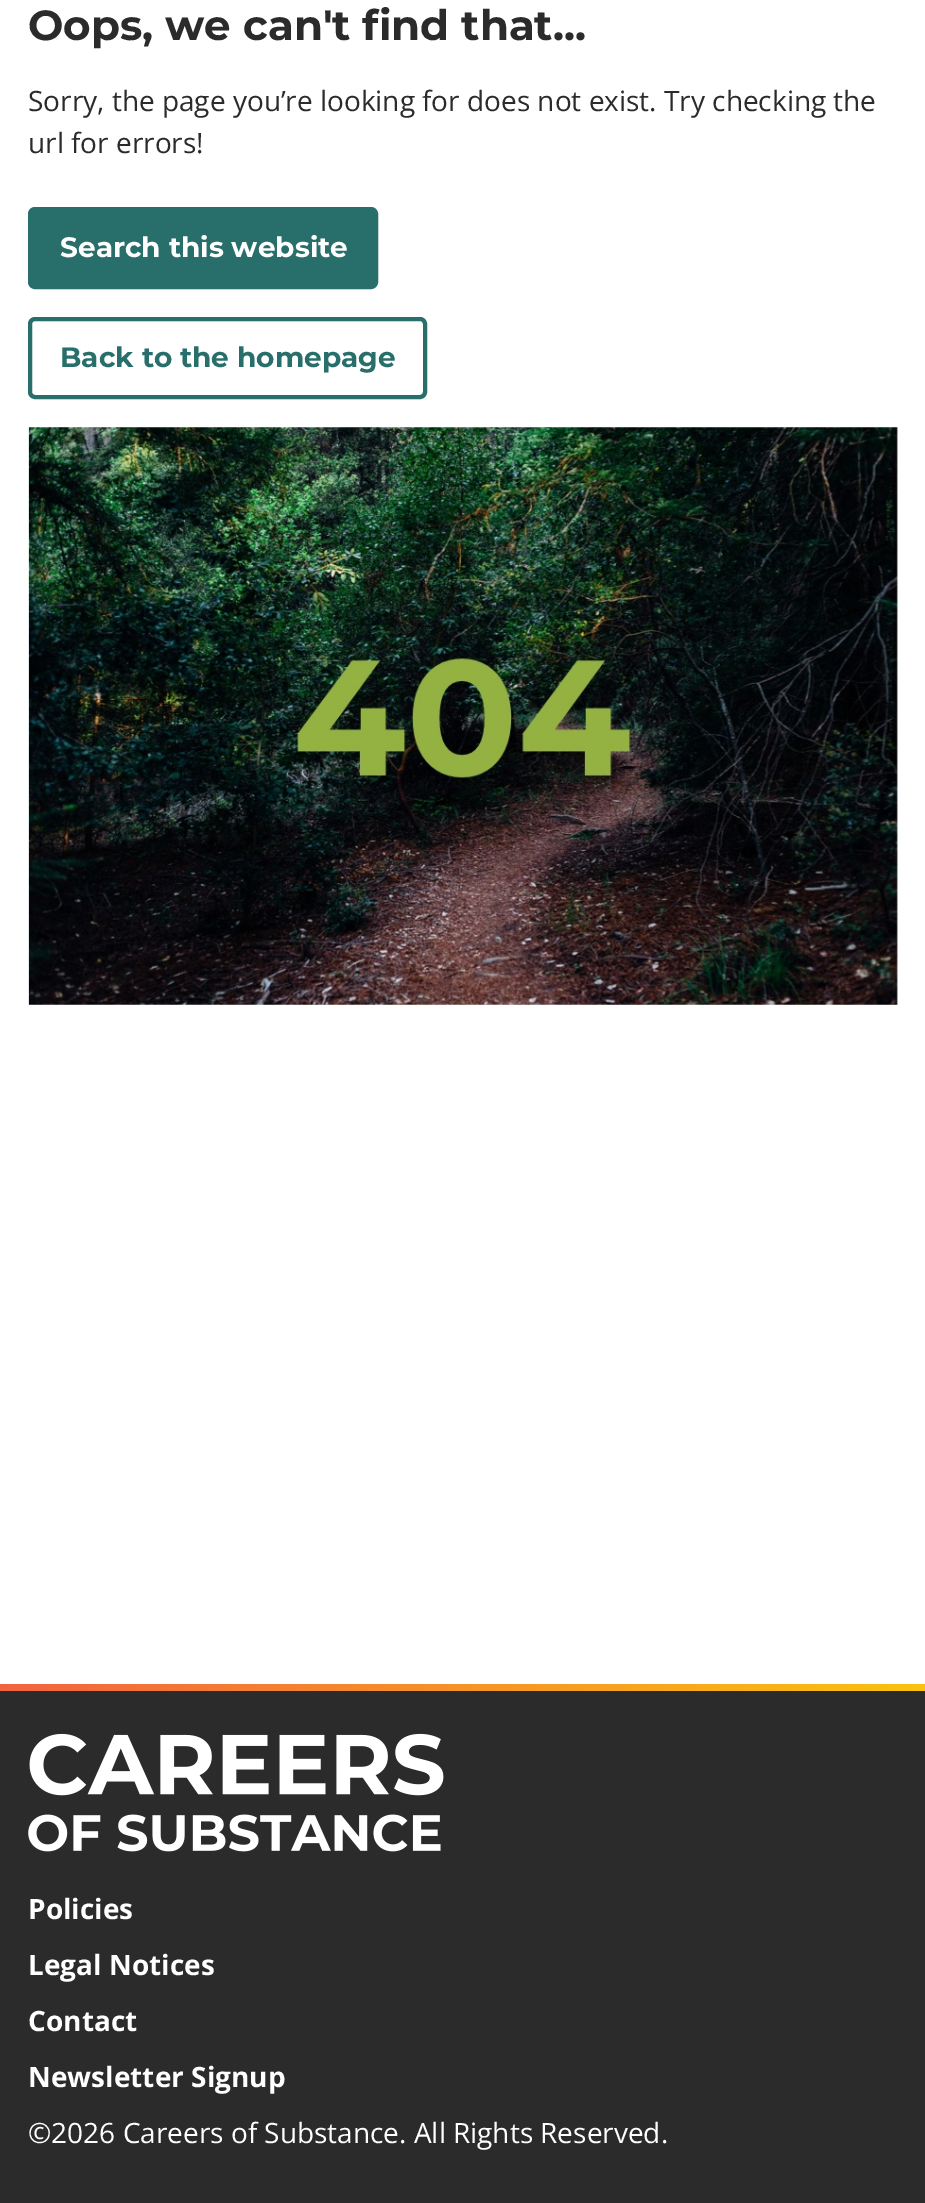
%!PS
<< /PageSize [925 2203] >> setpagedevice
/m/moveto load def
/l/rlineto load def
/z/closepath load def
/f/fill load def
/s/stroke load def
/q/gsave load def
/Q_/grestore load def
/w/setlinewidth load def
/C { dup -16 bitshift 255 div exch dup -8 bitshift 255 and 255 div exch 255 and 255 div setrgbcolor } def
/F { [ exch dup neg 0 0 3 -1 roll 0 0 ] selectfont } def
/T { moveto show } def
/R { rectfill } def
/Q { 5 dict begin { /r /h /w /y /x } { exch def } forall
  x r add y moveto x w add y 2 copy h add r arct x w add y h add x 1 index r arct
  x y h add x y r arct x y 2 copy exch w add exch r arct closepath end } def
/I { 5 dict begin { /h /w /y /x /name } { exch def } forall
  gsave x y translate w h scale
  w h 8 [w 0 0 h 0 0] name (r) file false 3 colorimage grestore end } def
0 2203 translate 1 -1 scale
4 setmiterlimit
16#FFFFFF C
0 0 925 2203 R
/Montserrat-Thin 42 F
16#2B2B2B C
(Oops, we can't find that...) 28 40 T
/OpenSans-Regular 28 F
(Sorry, the page you’re looking for does not exist. Try checking the) 28 111 T
(url for errors!) 28 153 T
16#286F6C C
30 209 346 78 5 Q q f Q_
4 w
s
/Montserrat-Thin 28 F
16#FFFFFF C
(Search this website) 60 257 T
16#286F6C C
30 319 395 78 5 Q s
(Back to the homepage) 60 367 T
(1.rgb) 28 427 870 578 I
16#2B2B2B C
0 1691 925 512 R
q 0 1684 m 925 0 l 0 7 l -925 0 l z clip newpath
<< /ShadingType 2 /ColorSpace /DeviceRGB /Coords [0 1687 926 1687] /Extend [true true] /Function << /FunctionType 2 /Domain [0 1] /C0 [.949 .392 .251] /C1 [.98 .761 .063] /N 1 >> >> shfill Q_
(2.rgb) 28 1733 416 119 I
/OpenSans-Bold 28 F
16#FFFFFF C
(Policies) 28 1919 T
(Legal Notices) 28 1975 T
(Contact) 28 2031 T
(Newsletter Signup) 28 2087 T
/OpenSans-Regular 28 F
(©2026 Careers of Substance. All Rights Reserved.) 28 2143 T
showpage
